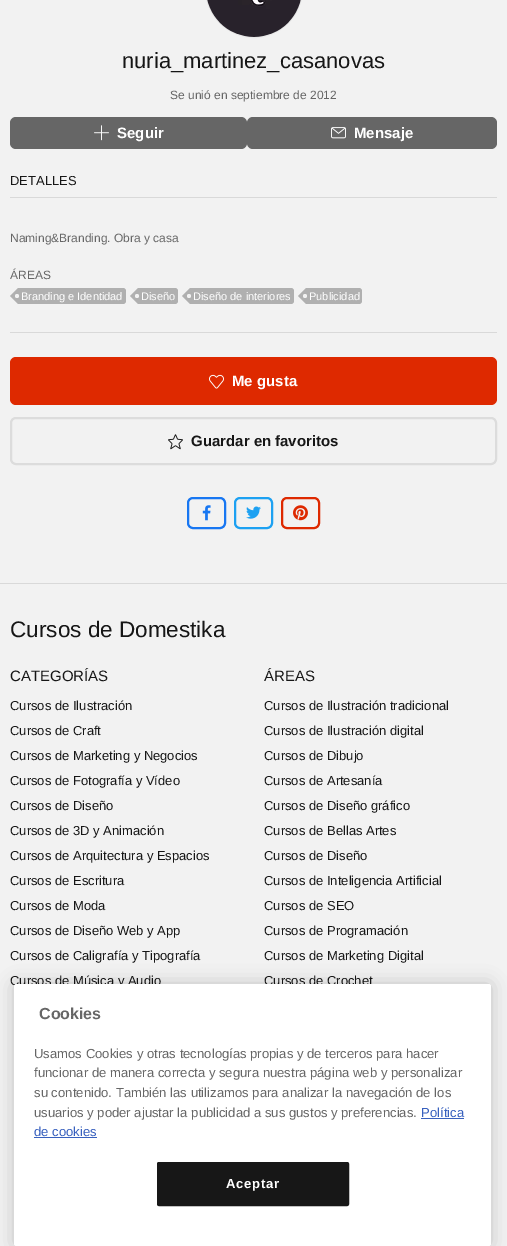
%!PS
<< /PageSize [507 1246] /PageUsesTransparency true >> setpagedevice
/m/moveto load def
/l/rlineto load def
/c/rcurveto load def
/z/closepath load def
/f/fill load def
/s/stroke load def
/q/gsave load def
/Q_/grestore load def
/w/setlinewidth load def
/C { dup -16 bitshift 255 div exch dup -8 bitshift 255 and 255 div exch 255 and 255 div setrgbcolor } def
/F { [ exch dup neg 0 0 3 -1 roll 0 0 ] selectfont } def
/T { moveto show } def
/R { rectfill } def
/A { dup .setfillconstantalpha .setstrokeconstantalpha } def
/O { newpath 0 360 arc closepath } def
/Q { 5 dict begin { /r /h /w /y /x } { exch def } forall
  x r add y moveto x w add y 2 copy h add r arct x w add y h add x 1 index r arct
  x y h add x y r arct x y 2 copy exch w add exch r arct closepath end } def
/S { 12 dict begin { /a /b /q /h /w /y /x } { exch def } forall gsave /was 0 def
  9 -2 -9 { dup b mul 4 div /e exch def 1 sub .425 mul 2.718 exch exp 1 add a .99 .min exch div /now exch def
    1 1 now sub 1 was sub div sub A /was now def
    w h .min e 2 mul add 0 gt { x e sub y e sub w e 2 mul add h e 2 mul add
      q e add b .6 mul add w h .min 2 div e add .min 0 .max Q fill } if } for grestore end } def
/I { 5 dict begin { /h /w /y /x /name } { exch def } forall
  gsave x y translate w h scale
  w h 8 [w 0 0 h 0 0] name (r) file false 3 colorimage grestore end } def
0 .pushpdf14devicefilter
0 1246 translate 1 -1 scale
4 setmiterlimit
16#F2F2F2 C
0 0 507 1246 R
16#E8E8E8 C
205.5 -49.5 97 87 48.5 Q s
(1.rgb) 207 0 94 37 I
/LiberationSans-Regular 22 F
16#161616 C
(nuria_martinez_casanovas) 122 68 T
/LiberationSans-Regular 12 F
16#666666 C
(Se unió en septiembre de 2012) 170 99 T
10 117 237 32 6 Q f
(2.rgb) 94 125 15 16 I
/LiberationSans-Bold 15 F
16#FFFFFF C
(Seguir) 117 138 T
16#666666 C
247 117 250 32 6 Q f
(3.rgb) 331 127 15 12 I
16#FFFFFF C
(Mensaje) 354 138 T
16#D9D9D9 C
10 197 487 1 R
/LiberationSans-Regular 13 F
16#161616 C
(DETALLES) 10 185 T
/LiberationSans-Regular 12 F
16#666666 C
(Naming&Branding. Obra y casa) 10 242 T
(ÁREAS) 10 279 T
16#B0B0B0 C
18 288 m 105 0 l 1.5 0 3 1.5 3 3 c 0 10 l 0 1.5 -1.5 3 -3 3 c -105 0 l z f
18 288 m 0 16 l -8 -8 l z f
/LiberationSans-Regular 11 F
16#FFFFFF C
(Branding e Identidad) 21 300 T
16#F2F2F2 C
17 296 2 O f
16#B0B0B0 C
138 288 m 37 0 l 1.5 0 3 1.5 3 3 c 0 10 l 0 1.5 -1.5 3 -3 3 c -37 0 l z f
138 288 m 0 16 l -8 -8 l z f
16#FFFFFF C
(Diseño) 141 300 T
16#F2F2F2 C
137 296 2 O f
16#B0B0B0 C
190 288 m 101 0 l 1.5 0 3 1.5 3 3 c 0 10 l 0 1.5 -1.5 3 -3 3 c -101 0 l z f
190 288 m 0 16 l -8 -8 l z f
16#FFFFFF C
(Diseño de interiores) 193 300 T
16#F2F2F2 C
189 296 2 O f
16#B0B0B0 C
306 288 m 53 0 l 1.5 0 3 1.5 3 3 c 0 10 l 0 1.5 -1.5 3 -3 3 c -53 0 l z f
306 288 m 0 16 l -8 -8 l z f
16#FFFFFF C
(Publicidad) 309 300 T
16#F2F2F2 C
305 296 2 O f
16#D9D9D9 C
10 332 487 1 R
16#DE2900 C
10 357 487 48 6 Q f
(4.rgb) 209 374 15 15 I
/LiberationSans-Bold 15 F
16#FFFFFF C
(Me gusta) 232 386 T
16#DCDCDC C
2 w
11 418 485 46 5 Q s
(5.rgb) 168 434 15 16 I
16#161616 C
(Guardar en favoritos) 191 446 T
16#1877F2 C
188 498 37 30 5 Q s
(6.rgb) 202 505 9 16 I
16#1DA1F2 C
235 498 37 30 5 Q s
(7.rgb) 246 506 15 13 I
16#DE2900 C
282 498 37 30 5 Q s
(8.rgb) 293 505 15 16 I
16#D9D9D9 C
0 583 507 1 R
/LiberationSans-Regular 22.5 F
16#161616 C
(Cursos de Domestika) 10 637 T
/LiberationSans-Regular 15 F
(CATEGORÍAS) 10 681 T
/LiberationSans-Regular 13 F
(Cursos de Ilustración) 10 710 T
(Cursos de Craft) 10 735 T
(Cursos de Marketing y Negocios) 10 760 T
(Cursos de Fotografía y Vídeo) 10 785 T
(Cursos de Diseño) 10 810 T
(Cursos de 3D y Animación) 10 835 T
(Cursos de Arquitectura y Espacios) 10 860 T
(Cursos de Escritura) 10 885 T
(Cursos de Moda) 10 910 T
(Cursos de Diseño Web y App) 10 935 T
(Cursos de Caligrafía y Tipografía) 10 960 T
(Cursos de Música y Audio) 10 985 T
/LiberationSans-Regular 15 F
(ÁREAS) 264 681 T
/LiberationSans-Regular 13 F
(Cursos de Ilustración tradicional) 264 710 T
(Cursos de Ilustración digital) 264 735 T
(Cursos de Dibujo) 264 760 T
(Cursos de Artesanía) 264 785 T
(Cursos de Diseño gráfico) 264 810 T
(Cursos de Bellas Artes) 264 835 T
(Cursos de Diseño) 264 860 T
(Cursos de Inteligencia Artificial) 264 885 T
(Cursos de SEO) 264 910 T
(Cursos de Programación) 264 935 T
(Cursos de Marketing Digital) 264 960 T
(Cursos de Crochet) 264 985 T
16#000000 C
14 984 477 262 2.5 9 .2 S
16#FFFFFF C
14 984 477 262 2.5 Q f
/LiberationSans-Bold 16 F
16#666666 C
(Cookies) 39 1019 T
/LiberationSans-Regular 13.1 F
(Usamos Cookies y otras tecnologías propias y de terceros para hacer) 34 1058 T
(funcionar de manera correcta y segura nuestra página web y personalizar) 34 1077 T
(su contenido. También las utilizamos para analizar la navegación de los) 34 1097 T
(usuarios y poder ajustar la publicidad a sus gustos y preferencias.) 34 1117 T
16#3860BE C
(Política) 421 1117 T
421 1118 43 1 R
(de cookies) 34 1136 T
34 1137 63 1 R
16#171717 C
157.5 1162.5 191 43 1.5 Q q f Q_
1 w
s
/LiberationSans-Bold 13.1 F
16#FFFFFF C
226 1188 m .75 0 (Aceptar) ashow
.poppdf14devicefilter showpage
